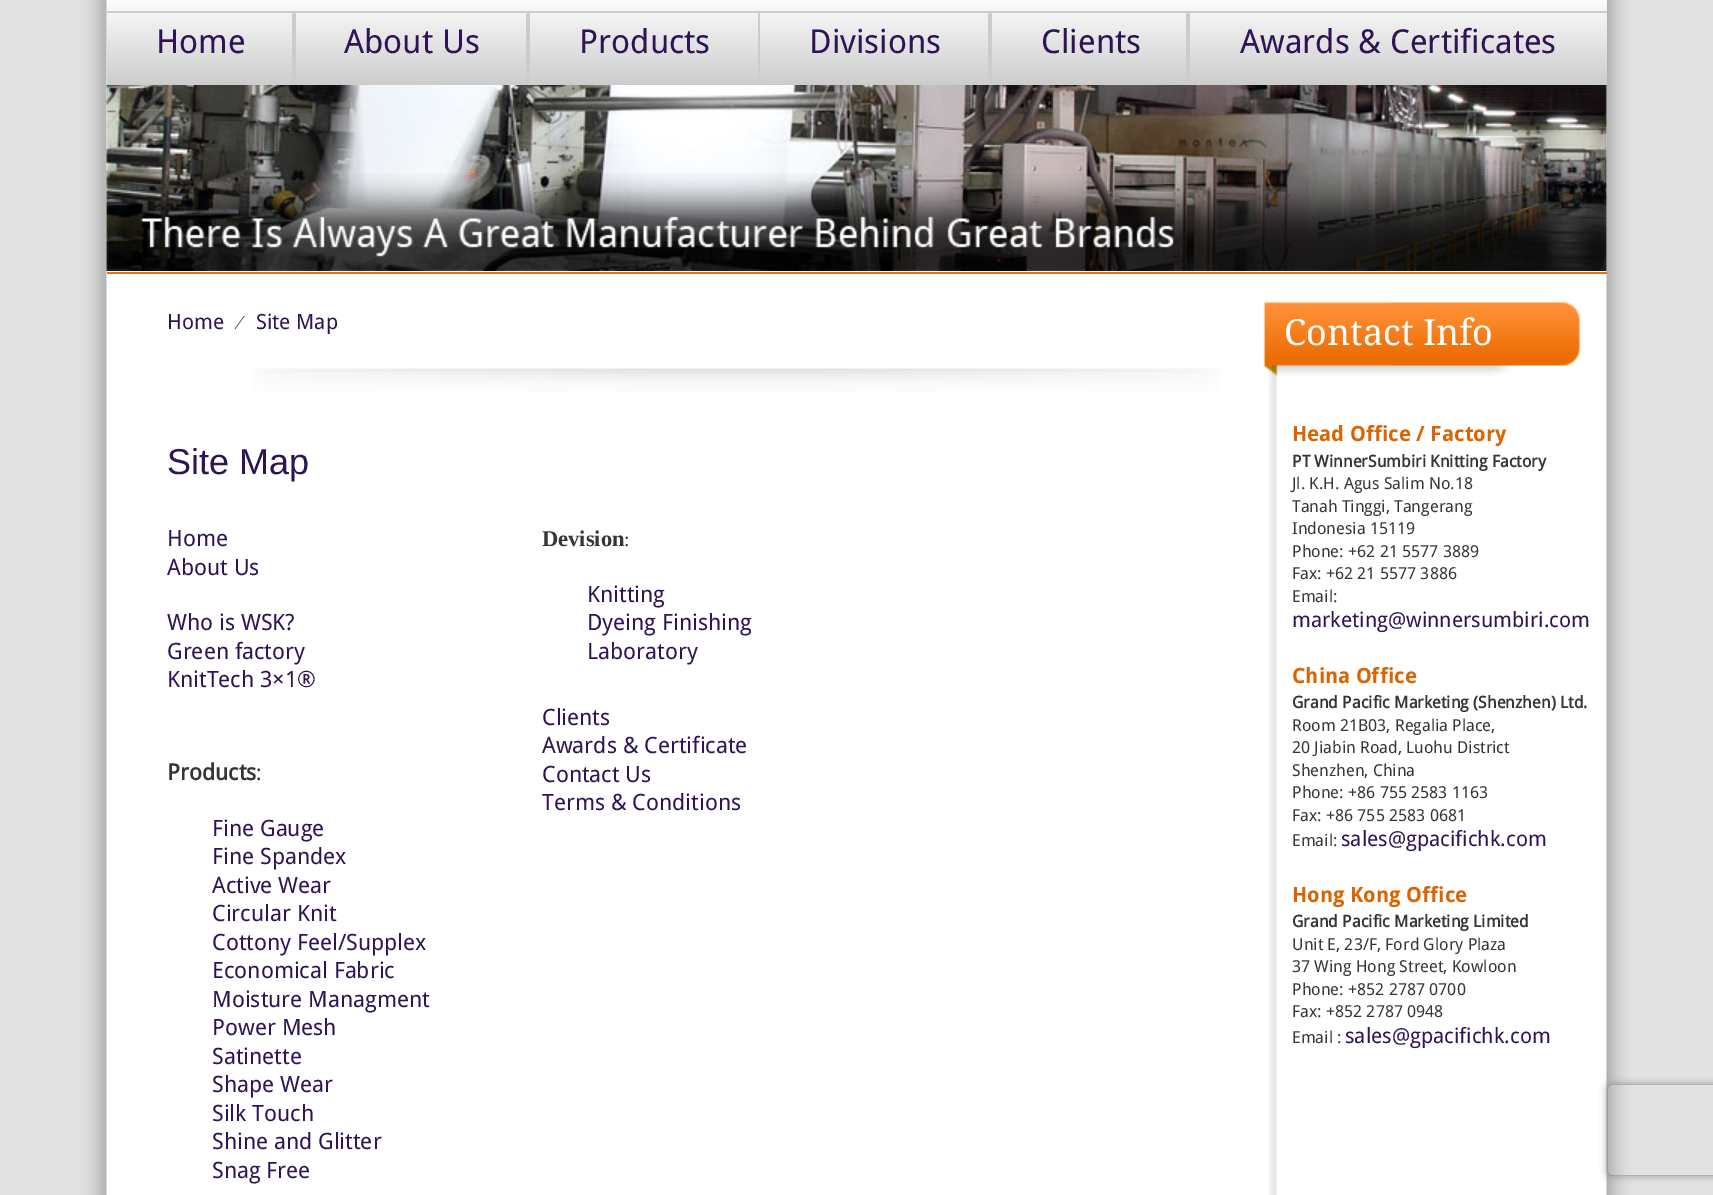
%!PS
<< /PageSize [1713 1195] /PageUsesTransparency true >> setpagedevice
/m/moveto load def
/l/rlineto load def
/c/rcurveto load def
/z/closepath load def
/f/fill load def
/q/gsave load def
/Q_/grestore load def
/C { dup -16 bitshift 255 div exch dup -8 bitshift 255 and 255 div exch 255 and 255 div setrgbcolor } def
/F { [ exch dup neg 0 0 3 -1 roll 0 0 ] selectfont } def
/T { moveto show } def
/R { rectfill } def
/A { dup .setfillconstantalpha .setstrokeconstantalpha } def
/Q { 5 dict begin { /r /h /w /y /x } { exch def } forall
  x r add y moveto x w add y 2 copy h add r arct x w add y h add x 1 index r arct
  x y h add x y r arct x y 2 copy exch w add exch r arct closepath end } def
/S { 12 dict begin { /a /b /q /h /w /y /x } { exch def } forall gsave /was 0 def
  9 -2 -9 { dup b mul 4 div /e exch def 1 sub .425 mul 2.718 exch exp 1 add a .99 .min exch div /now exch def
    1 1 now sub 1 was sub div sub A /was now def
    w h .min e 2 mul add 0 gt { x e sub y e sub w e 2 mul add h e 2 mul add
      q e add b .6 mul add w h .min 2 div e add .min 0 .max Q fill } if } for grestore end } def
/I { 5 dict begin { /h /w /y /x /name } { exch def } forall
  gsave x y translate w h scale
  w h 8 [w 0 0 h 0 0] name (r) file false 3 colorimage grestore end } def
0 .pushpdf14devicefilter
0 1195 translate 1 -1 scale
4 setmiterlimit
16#E2E2E2 C
0 0 1713 1195 R
(1.rgb) 78 0 1557 1195 I
q 107 0 m 1500 0 l 0 86 l -1500 0 l z clip newpath
<< /ShadingType 2 /ColorSpace /DeviceRGB /Coords [857 -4.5 857 86] /Extend [true true] /Function << /FunctionType 2 /Domain [0 1] /C0 [1 1 1] /C1 [.8 .8 .8] /N 1 >> >> shfill Q_
16#CCCCCC C
107 11 1500 2 R
296 12 m 0 84 l -4 -2 l 0 -80 l z f
/DroidSans-Regular 33 F
16#2F1354 C
(Home) 156 53 T
16#CCCCCC C
530 12 m 0 84 l -4 -2 l 0 -80 l z f
16#2F1354 C
(About Us) 344 53 T
16#CCCCCC C
760 12 m 0 84 l -2 -2 l 0 -80 l z f
16#2F1354 C
(Products) 579 53 T
16#CCCCCC C
992 12 m 0 84 l -4 -2 l 0 -80 l z f
16#2F1354 C
(Divisions) 809 53 T
16#CCCCCC C
1190 12 m 0 84 l -4 -2 l 0 -80 l z f
16#2F1354 C
(Clients) 1041 53 T
(Awards & Certificates) 1240 53 T
16#ED6E17 C
107 272 1500 2 R
(2.rgb) 106 85 1501 186 I
(3.rgb) 251 368 971 24 I
/DroidSans-Regular 21 F
16#2F1354 C
(Home) 167 329 T
/LiberationSerif-Regular 20 F
16#363636 C
(⁄) 238 329 T
/DroidSans-Regular 21 F
16#2F1354 C
(Site Map) 256 329 T
/LiberationSans-Regular 36 F
(Site Map) 167 474 T
/DroidSans-Regular 22.5 F
(Home) 167 546 T
(About Us) 167 575 T
(Who is WSK?) 167 630 T
(Green factory) 167 659 T
(KnitTech 3×1®) 167 687 T
/DroidSans-Bold 22.5 F
16#363636 C
(Products) 167 780 T
/DroidSans-Regular 21 F
(:) 256 780 T
/DroidSans-Regular 22.5 F
16#2F1354 C
(Fine Gauge) 212 836 T
(Fine Spandex) 212 864 T
(Active Wear) 212 893 T
(Circular Knit) 212 921 T
(Cottony Feel/Supplex) 212 950 T
(Economical Fabric) 212 978 T
(Moisture Managment) 212 1007 T
(Power Mesh) 212 1035 T
(Satinette) 212 1064 T
(Shape Wear) 212 1092 T
(Silk Touch) 212 1121 T
(Shine and Glitter) 212 1149 T
(Snag Free) 212 1178 T
/LiberationSerif-Bold 22.5 F
16#363636 C
(Devision) 542 546 T
/LiberationSerif-Regular 20 F
(:) 624 546 T
/DroidSans-Regular 22.5 F
16#2F1354 C
(Knitting) 587 602 T
(Dyeing Finishing) 587 630 T
(Laboratory) 587 659 T
(Clients) 542 725 T
(Awards & Certificate) 542 753 T
(Contact Us) 542 782 T
(Terms & Conditions) 542 810 T
(4.rgb) 1268 302 9 893 I
(5.rgb) 1264 302 316 75 I
/DroidSerif-Regular 36 F
16#FFFFFF C
(Contact Info) 1284 345 T
/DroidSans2-Bold 21 F
16#DB6300 C
(Head Office / Factory) 1292 441 T
/DroidSans-Bold 16.5 F
16#363636 C
(PT WinnerSumbiri Knitting Factory) 1292 467 T
/DroidSans-Regular 16.5 F
(Jl. K.H. Agus Salim No.18) 1292 489 T
(Tanah Tinggi, Tangerang) 1292 512 T
(Indonesia 15119) 1292 534 T
(Phone: +62 21 5577 3889) 1292 557 T
(Fax: +62 21 5577 3886) 1292 579 T
(Email:) 1292 602 T
/DroidSans-Regular 21 F
16#2F1354 C
(marketing@winnersumbiri.com) 1292 627 T
/DroidSans2-Bold 21 F
16#DB6300 C
(China Office) 1292 683 T
/DroidSans-Bold 16.5 F
16#363636 C
(Grand Pacific Marketing \(Shenzhen\) Ltd.) 1292 708 T
/DroidSans-Regular 16.5 F
(Room 21B03, Regalia Place,) 1292 731 T
(20 Jiabin Road, Luohu District) 1292 753 T
(Shenzhen, China) 1292 776 T
(Phone: +86 755 2583 1163) 1292 798 T
(Fax: +86 755 2583 0681) 1292 821 T
(Email:) 1292 846 T
/DroidSans-Regular 21 F
16#2F1354 C
(sales@gpacifichk.com) 1341 846 T
/DroidSans2-Bold 21 F
16#DB6300 C
(Hong Kong Office) 1292 902 T
/DroidSans-Bold 16.5 F
16#363636 C
(Grand Pacific Marketing Limited) 1292 927 T
/DroidSans-Regular 16.5 F
(Unit E, 23/F, Ford Glory Plaza) 1292 950 T
(37 Wing Hong Street, Kowloon) 1292 972 T
(Phone: +852 2787 0700) 1292 995 T
(Fax: +852 2787 0948) 1292 1017 T
(Email :) 1292 1043 T
/DroidSans-Regular 21 F
16#2F1354 C
(sales@gpacifichk.com) 1345 1043 T
q
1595 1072 m 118 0 l 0 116 l -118 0 l z 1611 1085 m 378 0 l 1.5 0 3 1.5 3 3 c 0 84 l 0 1.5 -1.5 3 -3 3 c -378 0 l -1.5 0 -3 -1.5 -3 -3 c 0 -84 l 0 -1.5 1.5 -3 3 -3 c z eoclip newpath
16#808080 C
1608 1085 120 90 3 4 1 S
Q_
.poppdf14devicefilter showpage
